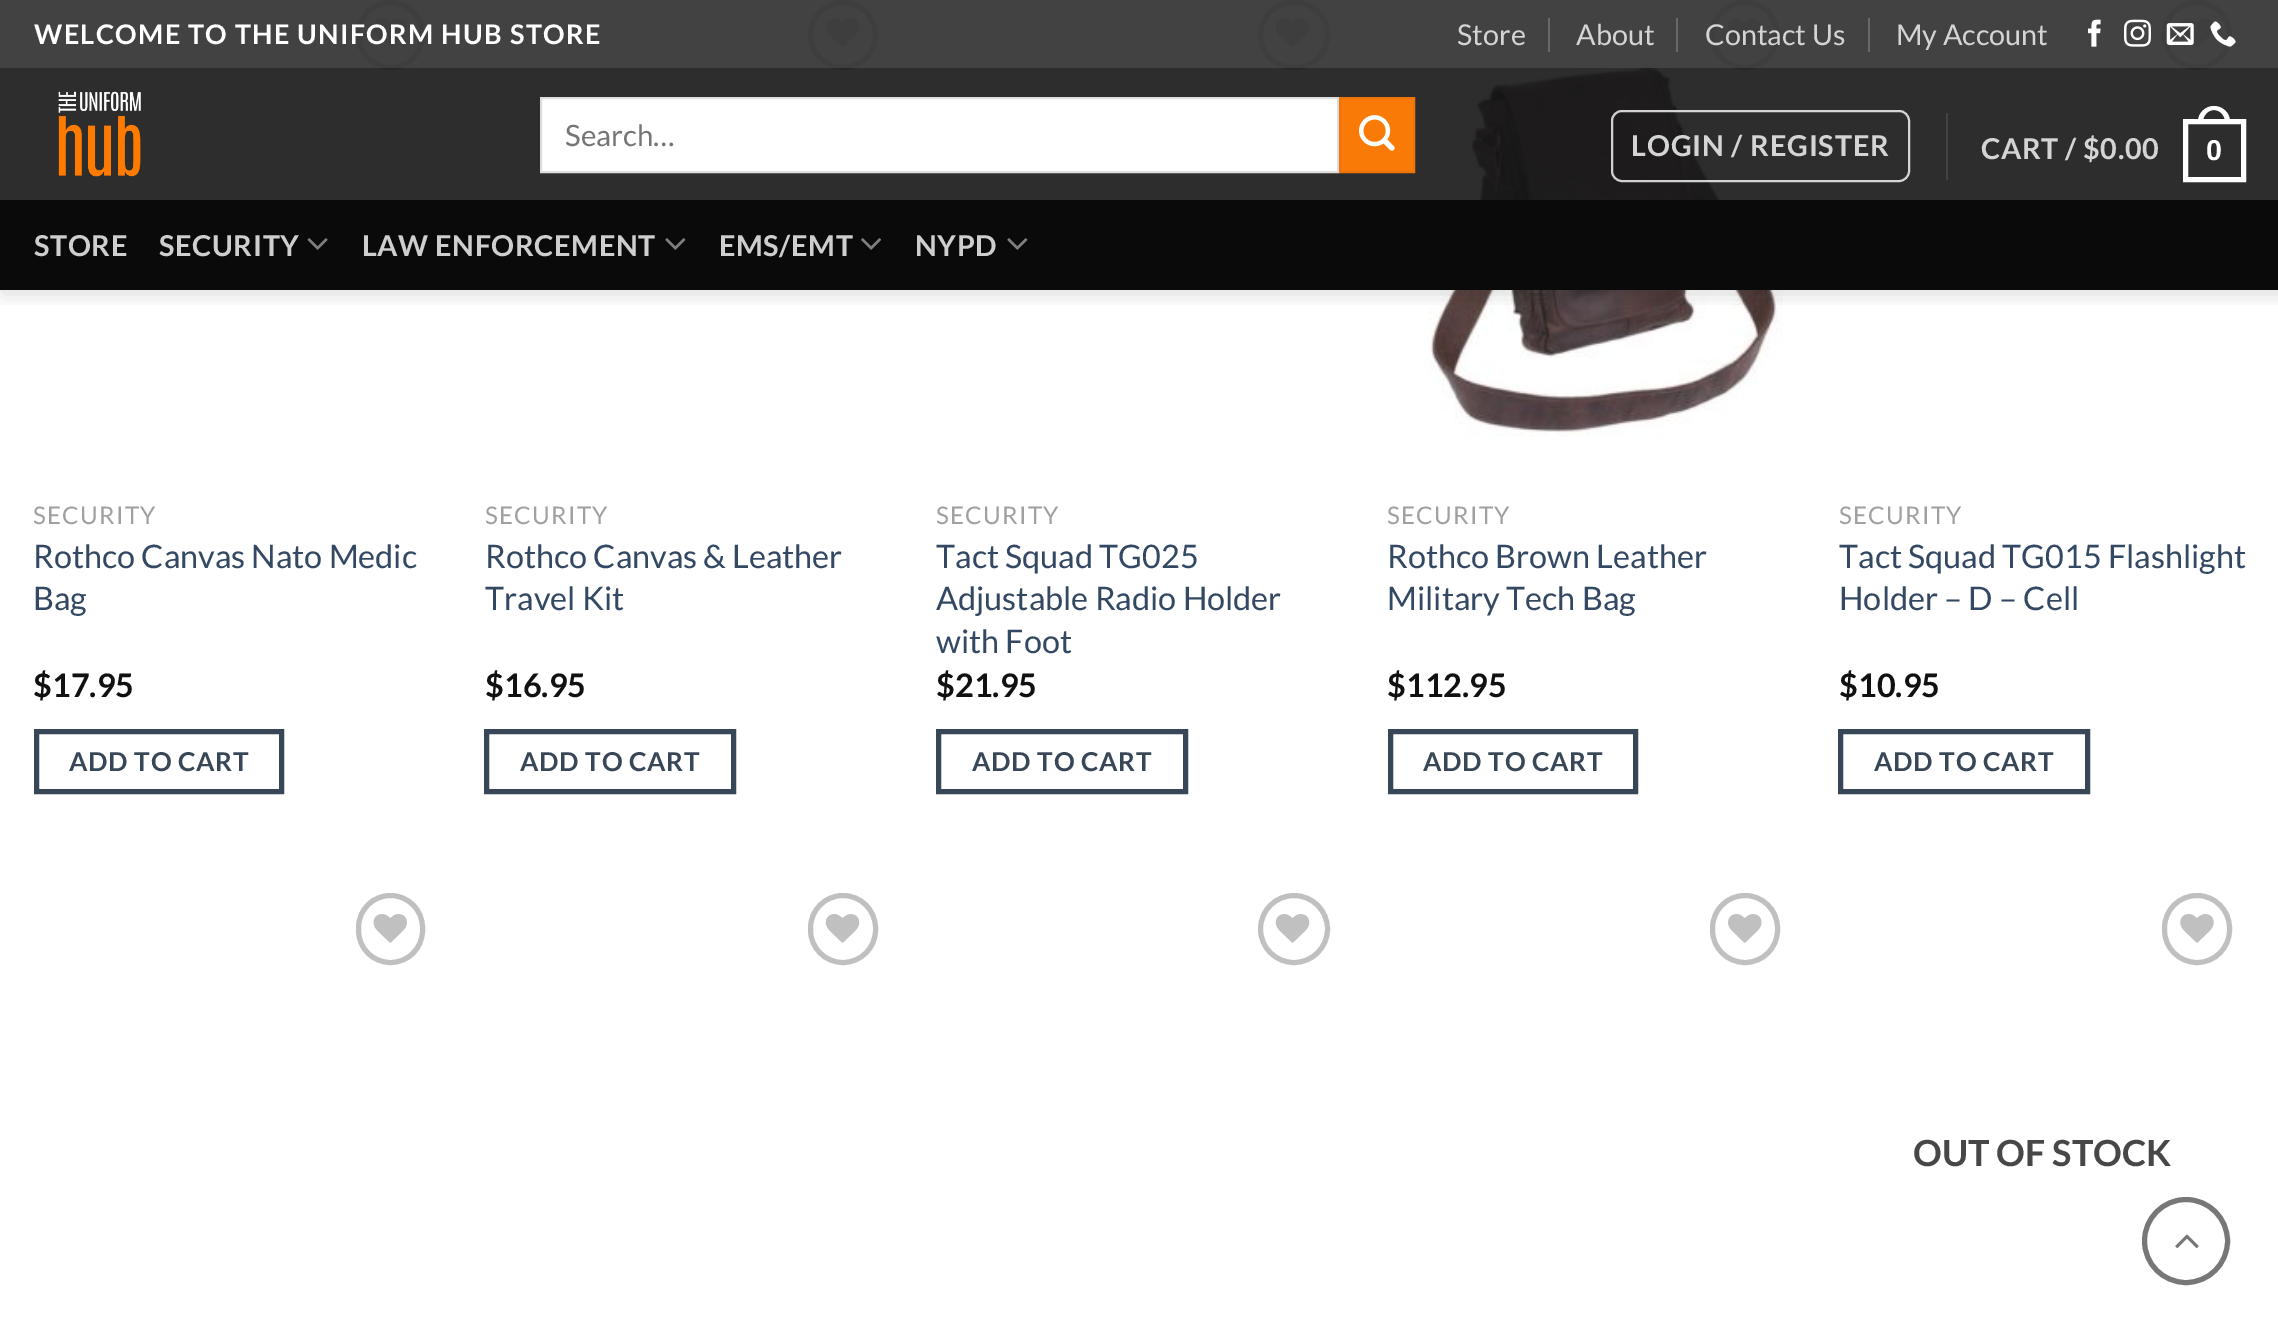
%!PS
<< /PageSize [2278 1328] /PageUsesTransparency true >> setpagedevice
/m/moveto load def
/l/rlineto load def
/c/rcurveto load def
/z/closepath load def
/f/fill load def
/s/stroke load def
/q/gsave load def
/Q_/grestore load def
/w/setlinewidth load def
/C { dup -16 bitshift 255 div exch dup -8 bitshift 255 and 255 div exch 255 and 255 div setrgbcolor } def
/F { [ exch dup neg 0 0 3 -1 roll 0 0 ] selectfont } def
/T { moveto show } def
/R { rectfill } def
/A { dup .setfillconstantalpha .setstrokeconstantalpha } def
/O { newpath 0 360 arc closepath } def
/Q { 5 dict begin { /r /h /w /y /x } { exch def } forall
  x r add y moveto x w add y 2 copy h add r arct x w add y h add x 1 index r arct
  x y h add x y r arct x y 2 copy exch w add exch r arct closepath end } def
/S { 12 dict begin { /a /b /q /h /w /y /x } { exch def } forall gsave /was 0 def
  9 -2 -9 { dup b mul 4 div /e exch def 1 sub .425 mul 2.718 exch exp 1 add a .99 .min exch div /now exch def
    1 1 now sub 1 was sub div sub A /was now def
    w h .min e 2 mul add 0 gt { x e sub y e sub w e 2 mul add h e 2 mul add
      q e add b .6 mul add w h .min 2 div e add .min 0 .max Q fill } if } for grestore end } def
/I { 5 dict begin { /h /w /y /x /name } { exch def } forall
  gsave x y translate w h scale
  w h 8 [w 0 0 h 0 0] name (r) file false 3 colorimage grestore end } def
0 .pushpdf14devicefilter
0 1328 translate 1 -1 scale
4 setmiterlimit
16#FFFFFF C
0 0 2278 1328 R
16#C0C0C0 C
5 w
358.5 2.5 64 65 32 Q s
(10.rgb) 373 18 34 30 I
843 35 32.5 O s
(11.rgb) 825 18 35 30 I
1260.5 2.5 67 65 32.5 Q s
(11.rgb) 1275 18 35 30 I
(13.rgb) 1428 62 355 375 I
1745 35 32.5 O s
(12.rgb) 1728 18 34 30 I
2197 35 32.5 O s
(14.rgb) 2180 18 33 30 I
q
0 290 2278 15 rectclip
16#000000 C
2 2 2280 291 0 11 .15 S
Q_
0.9 A
16#161616 C
0 0 2278 200 R
0.42 A
16#5E5E5E C
0 0 2278 68 R
/Lato-Bold 27 F
1 A
16#FFFFFF C
34 44 m 1.35 0 (WELCOME TO THE UNIFORM HUB STORE) ashow
/Lato-Regular 28.75 F
16#D4D4D4 C
(Store) 1457 45 T
16#686868 C
1548 18 2 34 R
16#D4D4D4 C
(About) 1576 45 T
16#686868 C
1676 18 2 34 R
16#D4D4D4 C
(Contact Us) 1705 45 T
16#686868 C
1868 18 2 34 R
16#D4D4D4 C
(My Account) 1896 45 T
(1.rgb) 2088 19 13 28 I
(2.rgb) 2124 19 27 28 I
(3.rgb) 2166 23 28 22 I
(4.rgb) 2210 21 26 26 I
(5.rgb) 58 91 83 86 I
16#FFFFFF C
541 98 m 797 0 l 0 74 l -797 0 l z q f Q_
16#DDDDDD C
2 w
s
/Lato-Regular 29.5 F
16#757575 C
(Search…) 565 146 T
16#FA7A08 C
1340 98 m 74 0 l 0 74 l -74 0 l z q f Q_
16#EE7408 C
s
(6.rgb) 1359 115 36 36 I
0.8 A
16#FFFFFF C
1612 111 297 70 10 Q s
/Lato-Bold 28.75 F
1 A
16#D4D4D4 C
1631 156 m .9 0 (LOGIN / REGISTER) ashow
16#424242 C
1946 113 2 67 R
16#D4D4D4 C
1981 159 m .6 0 (CART / $0.00) ashow
16#FFFFFF C
5 w
2185.5 121.5 58 58 rectstroke
2214 106 m 8.5 0 16 7 16 15.5 c 0 2.5 l -32 0 l 0 -2.5 l 0 -8.5 7.5 -15.5 16 -15.5 c z 2214 110 m 6 0 11 5.5 11 11.5 c 0 2.5 l -22 0 l 0 -2.5 l 0 -6 5 -11.5 11 -11.5 c z eofill
/LiberationSans-Bold 28.75 F
2206 160 m .6 0 (0) ashow
16#0A0A0A C
0 200 2278 90 R
/Lato-Bold 28.75 F
16#CECECE C
34 256 m .6 0 (STORE) ashow
159 256 m .6 0 (SECURITY) ashow
(7.rgb) 307 238 21 12 I
362 256 m .6 0 (LAW ENFORCEMENT) ashow
(8.rgb) 665 238 21 12 I
719 256 m .6 0 (EMS/EMT) ashow
(9.rgb) 861 238 20 12 I
915 256 m .6 0 (NYPD) ashow
(8.rgb) 1007 238 21 12 I
/Lato-Regular 24.25 F
16#A0A0A0 C
33 524 m 1.25 0 (SECURITY) ashow
/Lato-Regular 32.4 F
16#334862 C
(Rothco Canvas Nato Medic) 33 568 T
(Bag) 33 610 T
/Lato-Bold 32.4 F
16#111111 C
($17.95) 33 697 T
16#384757 C
36.5 731.5 245 60 rectstroke
/Lato-Bold 26 F
69 771 m .75 0 (ADD TO CART) ashow
/Lato-Regular 24.25 F
16#A0A0A0 C
485 524 m 1.25 0 (SECURITY) ashow
/Lato-Regular 32.4 F
16#334862 C
(Rothco Canvas & Leather) 485 568 T
(Travel Kit) 485 610 T
/Lato-Bold 32.4 F
16#111111 C
($16.95) 485 697 T
16#384757 C
486.5 731.5 247 60 rectstroke
/Lato-Bold 26 F
520 771 m .75 0 (ADD TO CART) ashow
/Lato-Regular 24.25 F
16#A0A0A0 C
936 524 m 1.25 0 (SECURITY) ashow
/Lato-Regular 32.4 F
16#334862 C
(Tact Squad TG025) 936 568 T
(Adjustable Radio Holder) 936 610 T
(with Foot) 936 653 T
/Lato-Bold 32.4 F
16#111111 C
($21.95) 936 697 T
16#384757 C
938.5 731.5 247 60 rectstroke
/Lato-Bold 26 F
972 771 m .75 0 (ADD TO CART) ashow
/Lato-Regular 24.25 F
16#A0A0A0 C
1387 524 m 1.25 0 (SECURITY) ashow
/Lato-Regular 32.4 F
16#334862 C
(Rothco Brown Leather) 1387 568 T
(Military Tech Bag) 1387 610 T
/Lato-Bold 32.4 F
16#111111 C
($112.95) 1387 697 T
16#384757 C
1390.5 731.5 245 60 rectstroke
/Lato-Bold 26 F
1423 771 m .75 0 (ADD TO CART) ashow
/Lato-Regular 24.25 F
16#A0A0A0 C
1839 524 m 1.25 0 (SECURITY) ashow
/Lato-Regular 32.4 F
16#334862 C
(Tact Squad TG015 Flashlight) 1839 568 T
(Holder – D – Cell) 1839 610 T
/Lato-Bold 32.4 F
16#111111 C
($10.95) 1839 697 T
16#384757 C
1840.5 731.5 247 60 rectstroke
/Lato-Bold 26 F
1874 771 m .75 0 (ADD TO CART) ashow
16#C0C0C0 C
358.5 895.5 64 67 32 Q s
(15.rgb) 373 914 34 29 I
810.5 895.5 65 67 32.5 Q s
(16.rgb) 825 914 35 29 I
1294 929 33.5 O s
(16.rgb) 1275 914 35 29 I
1712.5 895.5 65 67 32.5 Q s
(17.rgb) 1728 914 34 29 I
2164.5 895.5 65 67 32.5 Q s
(18.rgb) 2180 914 34 29 I
/Lato-Bold 36 F
16#474747 C
(OUT OF STOCK) 1913 1166 T
16#777777 C
2186 1241 41.5 O s
(19.rgb) 2175 1234 24 14 I
.poppdf14devicefilter showpage
